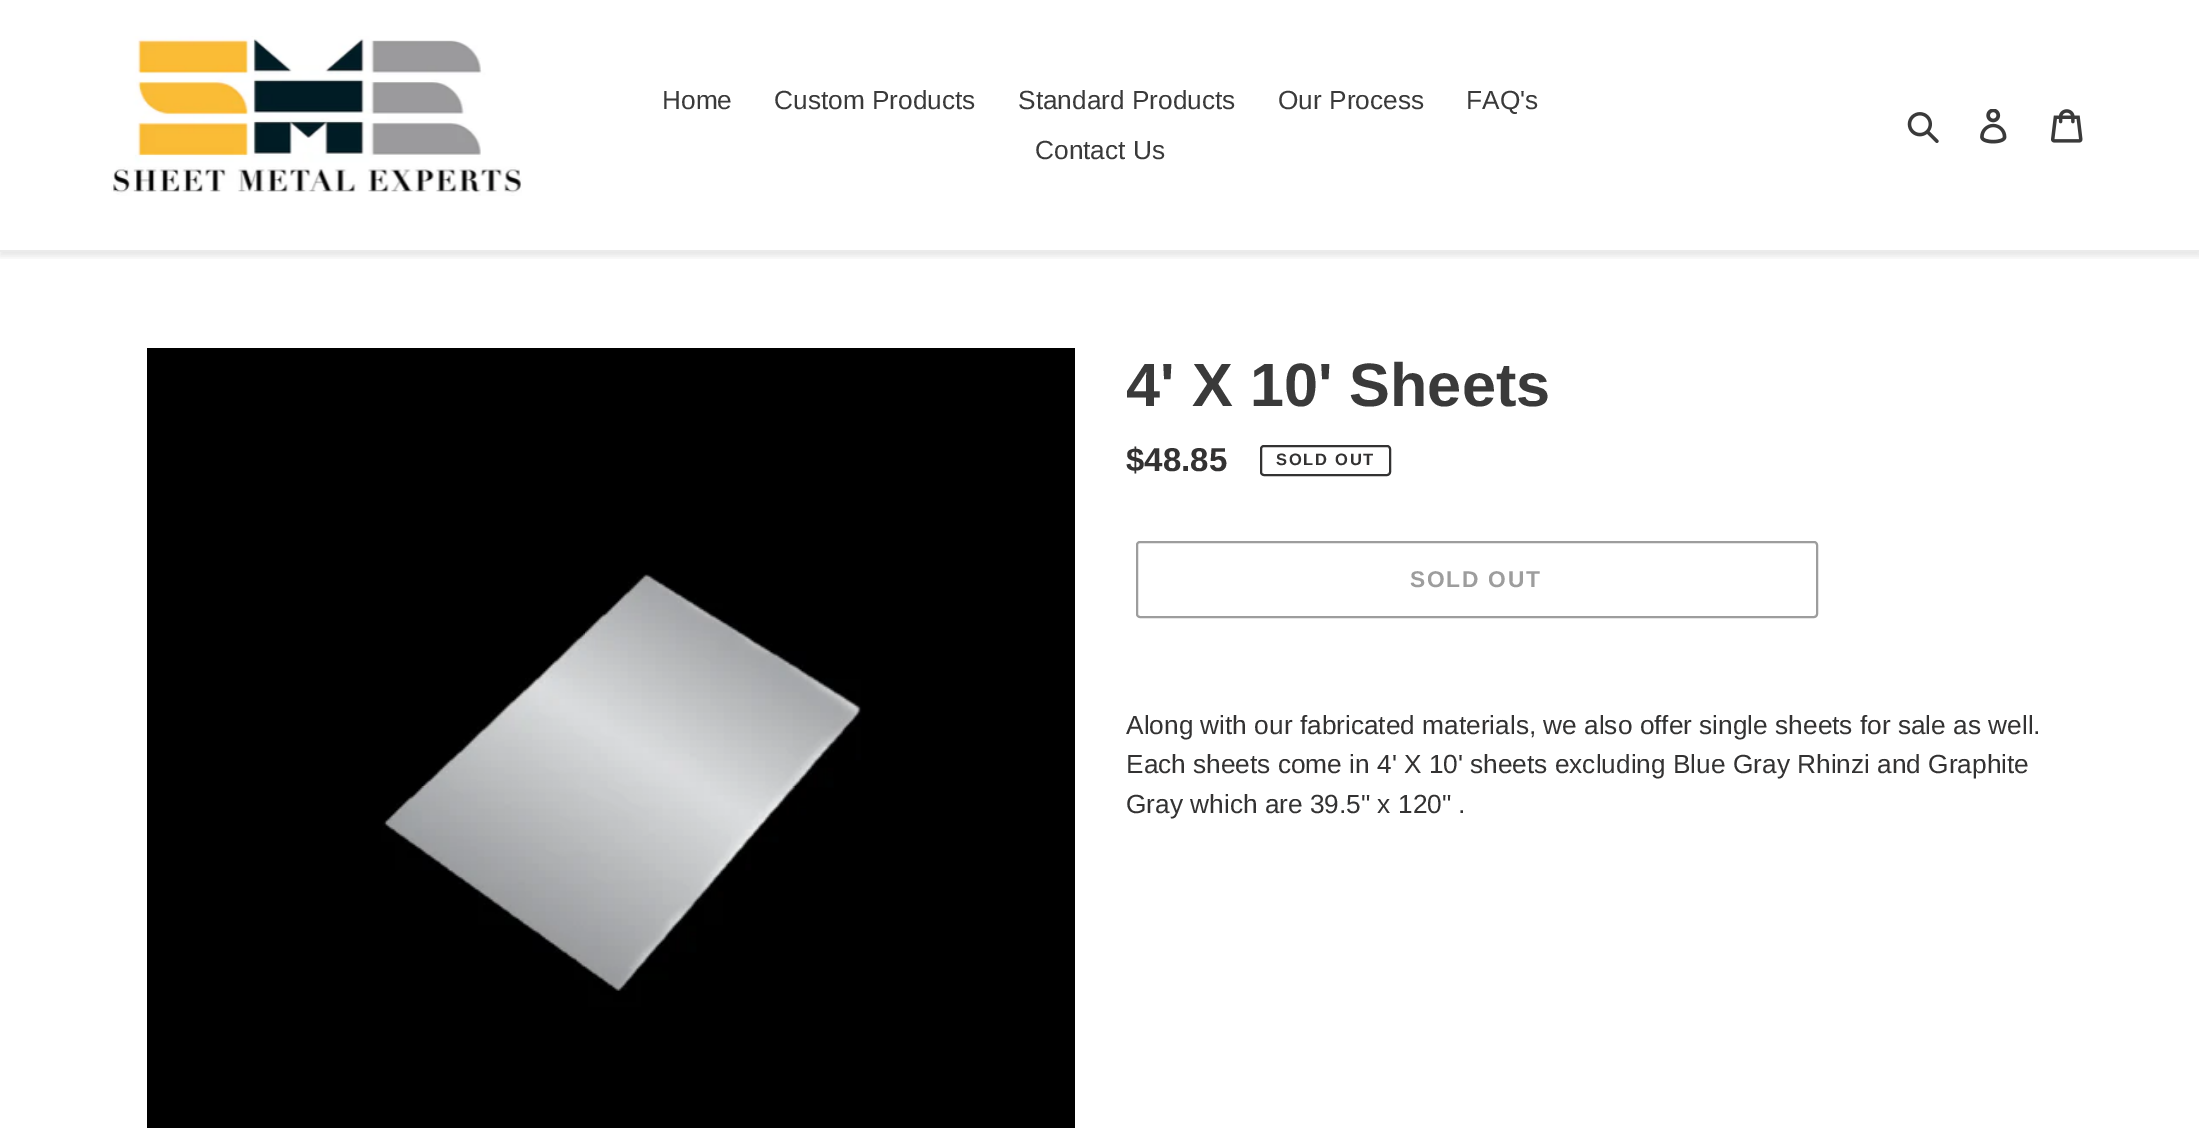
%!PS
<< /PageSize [2199 1128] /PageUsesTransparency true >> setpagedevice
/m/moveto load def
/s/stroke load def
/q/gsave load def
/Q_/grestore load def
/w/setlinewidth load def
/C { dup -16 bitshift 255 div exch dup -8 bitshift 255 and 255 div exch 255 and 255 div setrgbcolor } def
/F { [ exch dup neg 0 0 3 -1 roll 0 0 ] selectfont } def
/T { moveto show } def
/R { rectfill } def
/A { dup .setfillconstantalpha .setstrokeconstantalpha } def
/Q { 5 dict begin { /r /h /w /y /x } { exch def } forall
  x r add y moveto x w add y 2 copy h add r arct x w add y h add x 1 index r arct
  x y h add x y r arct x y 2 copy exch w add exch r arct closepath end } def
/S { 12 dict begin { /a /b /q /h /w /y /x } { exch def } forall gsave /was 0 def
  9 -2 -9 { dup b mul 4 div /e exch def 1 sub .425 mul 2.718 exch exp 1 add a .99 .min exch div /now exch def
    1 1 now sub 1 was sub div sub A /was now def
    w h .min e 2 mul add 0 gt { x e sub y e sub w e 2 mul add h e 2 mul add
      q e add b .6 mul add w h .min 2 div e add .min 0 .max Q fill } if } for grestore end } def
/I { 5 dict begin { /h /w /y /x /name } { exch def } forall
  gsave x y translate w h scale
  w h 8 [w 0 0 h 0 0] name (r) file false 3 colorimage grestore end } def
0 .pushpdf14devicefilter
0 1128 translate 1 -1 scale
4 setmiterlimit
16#FFFFFF C
0 0 2199 1128 R
q
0 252 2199 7 rectclip
16#000000 C
0 4 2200 252 0 3.5 .1 S
Q_
16#EBEBEB C
0 250 2199 2 R
(1.rgb) 111 36 411 160 I
/LiberationSans-Regular 26.25 F
16#3A3A3A C
(Home) 662 109 T
(Custom Products) 774 109 T
(Standard Products) 1018 109 T
(Our Process) 1278 109 T
(FAQ's) 1466 109 T
(Contact Us) 1035 159 T
(2.rgb) 1907 112 32 31 I
(3.rgb) 1980 109 27 35 I
(4.rgb) 2051 109 32 34 I
(5.rgb) 147 348 928 780 I
/LiberationSans-Bold 61.25 F
(4' X 10' Sheets) 1126 406 T
/LiberationSans-Bold 33 F
16#333232 C
($48.85) 1126 471 T
2 w
1261 446 129 29 3 Q s
/LiberationSans-Bold 16.5 F
1276 465 m 1.75 0 (SOLD OUT) ashow
16#9D9D9D C
1137 542 680 75 3 Q s
/LiberationSans-Bold 22.75 F
1410 587 m 1.75 0 (SOLD OUT) ashow
/LiberationSans-Regular 26.25 F
16#333232 C
(Along with our fabricated materials, we also offer single sheets for sale as well.) 1126 734 T
(Each sheets come in 4' X 10' sheets excluding Blue Gray Rhinzi and Graphite) 1126 773 T
(Gray which are 39.5" x 120" .) 1126 813 T
.poppdf14devicefilter showpage
